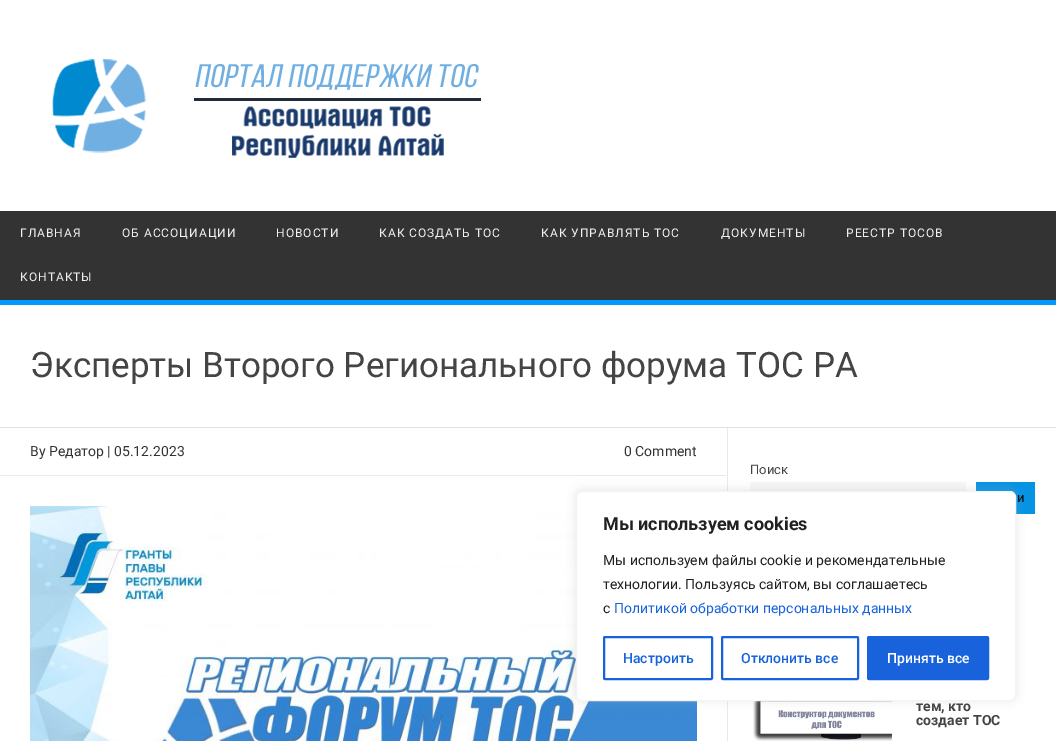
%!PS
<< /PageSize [1056 741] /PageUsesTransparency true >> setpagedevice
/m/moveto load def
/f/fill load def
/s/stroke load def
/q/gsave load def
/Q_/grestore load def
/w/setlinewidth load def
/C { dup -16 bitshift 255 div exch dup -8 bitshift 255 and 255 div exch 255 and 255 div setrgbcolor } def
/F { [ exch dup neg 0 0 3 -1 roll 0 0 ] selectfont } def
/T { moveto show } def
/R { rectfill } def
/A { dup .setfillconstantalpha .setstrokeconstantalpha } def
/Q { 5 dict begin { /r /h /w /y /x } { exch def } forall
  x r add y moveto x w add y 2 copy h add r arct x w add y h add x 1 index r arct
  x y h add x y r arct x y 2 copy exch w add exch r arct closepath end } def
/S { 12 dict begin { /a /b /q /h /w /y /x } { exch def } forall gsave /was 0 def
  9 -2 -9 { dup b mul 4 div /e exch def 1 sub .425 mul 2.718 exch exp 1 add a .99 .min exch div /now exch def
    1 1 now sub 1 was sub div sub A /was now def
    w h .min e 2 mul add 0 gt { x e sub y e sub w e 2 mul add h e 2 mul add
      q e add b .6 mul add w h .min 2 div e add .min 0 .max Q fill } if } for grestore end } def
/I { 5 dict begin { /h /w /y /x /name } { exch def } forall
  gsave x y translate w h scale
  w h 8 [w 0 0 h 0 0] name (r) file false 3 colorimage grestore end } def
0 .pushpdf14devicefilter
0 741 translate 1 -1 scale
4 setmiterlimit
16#FFFFFF C
0 0 1056 741 R
(1.rgb) 52 59 429 99 I
16#333333 C
0 211 1056 89 R
16#0099FF C
0 300 1056 5 R
/Roboto-Regular 12 F
16#F1F1F1 C
20 237 m 1 0 (ГЛАВНАЯ) ashow
122 237 m 1 0 (ОБ АССОЦИАЦИИ) ashow
276 237 m 1 0 (НОВОСТИ) ashow
379 237 m 1 0 (КАК СОЗДАТЬ ТОС) ashow
541 237 m 1 0 (КАК УПРАВЛЯТЬ ТОС) ashow
721 237 m 1 0 (ДОКУМЕНТЫ) ashow
846 237 m 1 0 (РЕЕСТР ТОСОВ) ashow
20 281 m 1 0 (КОНТАКТЫ) ashow
16#E1E1E1 C
0 427 1056 1 R
/Roboto-Regular 35 F
16#444444 C
(Эксперты Второго Регионального форума ТОС РА) 30 377 T
16#E9E9E9 C
727 428 1 313 R
0 475 726 1 R
/Roboto-Regular 14 F
16#333333 C
(By Редатор | 05.12.2023) 30 456 T
(0 Comment) 624 456 T
(2.rgb) 30 506 667 235 I
/Roboto-Regular 13 F
16#444444 C
(Поиск) 750 474 T
16#F7F7F7 C
750 482 216 9 R
16#0693E3 C
976 482 59 32 R
16#000000 C
(и) 1017 502 T
(3.rgb) 753 701 139 40 I
/Roboto-Bold 14 F
16#444444 C
(тем, кто) 916 711 T
(создает ТОС) 916 725 T
16#ACABAB C
576 490 440 210 6 5 .3 S
16#FFFFFF C
576.5 491.5 439 209 5.5 Q q f Q_
16#F4F4F4 C
s
/Roboto-Bold 18 F
16#212121 C
(Мы используем cookies) 603 530 T
/Roboto-Regular 14 F
(Мы используем файлы cookie и рекомендательные) 603 565 T
(технологии. Пользуясь сайтом, вы соглашаетесь) 603 589 T
(с) 603 613 T
16#1863DC C
(Политикой обработки персональных данных) 614 613 T
2 w
604 637 108 42 1 Q s
/Roboto-Medium 14 F
(Настроить) 623 663 T
722 637 136 42 1 Q s
(Отклонить все) 741 663 T
868 637 120 42 1 Q q f Q_
s
16#FFFFFF C
(Принять все) 887 663 T
.poppdf14devicefilter showpage
